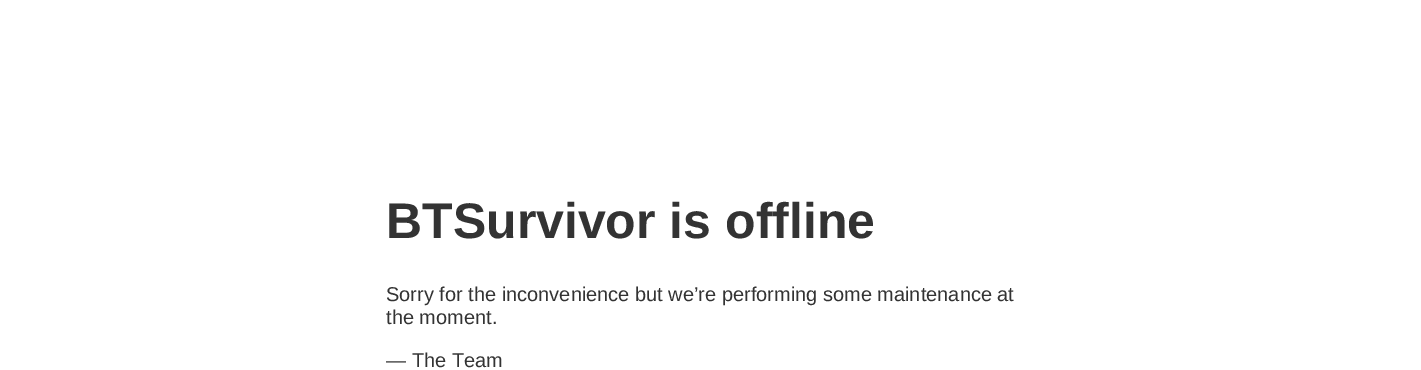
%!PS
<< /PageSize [1421 370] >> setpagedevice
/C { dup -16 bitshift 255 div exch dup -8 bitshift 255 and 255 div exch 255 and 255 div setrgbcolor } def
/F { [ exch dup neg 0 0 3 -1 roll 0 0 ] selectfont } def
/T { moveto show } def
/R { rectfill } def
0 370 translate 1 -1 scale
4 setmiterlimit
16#FFFFFF C
0 0 1421 370 R
/LiberationSans-Bold 50 F
16#333333 C
(BTSurvivor is offline) 386 238 T
/LiberationSans-Regular 20 F
(Sorry for the inconvenience but we’re performing some maintenance at) 386 301 T
(the moment.) 386 324 T
(— The Team) 386 367 T
showpage
